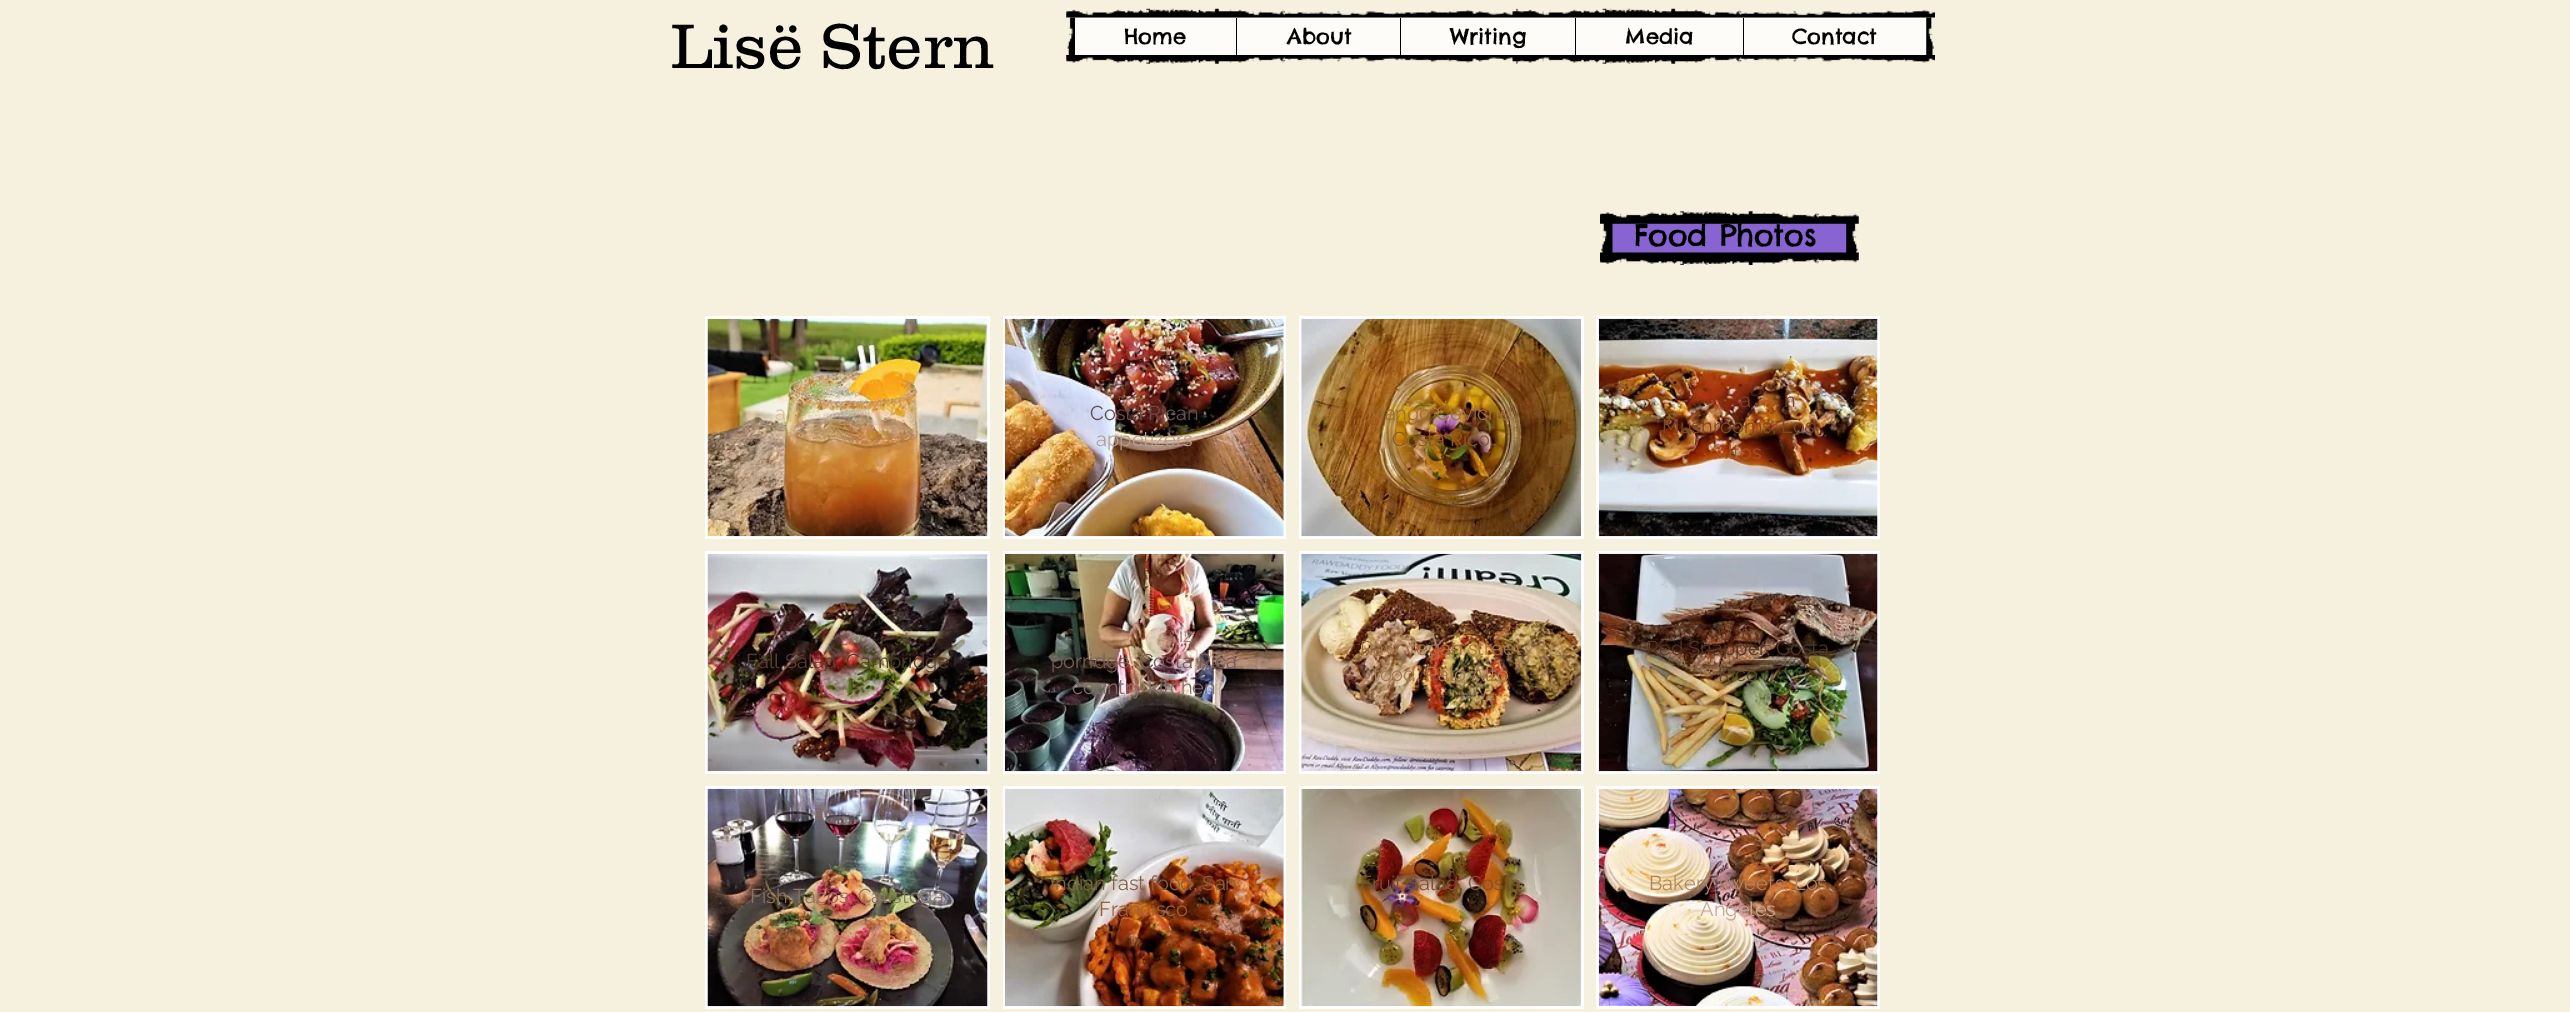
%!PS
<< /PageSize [2570 1012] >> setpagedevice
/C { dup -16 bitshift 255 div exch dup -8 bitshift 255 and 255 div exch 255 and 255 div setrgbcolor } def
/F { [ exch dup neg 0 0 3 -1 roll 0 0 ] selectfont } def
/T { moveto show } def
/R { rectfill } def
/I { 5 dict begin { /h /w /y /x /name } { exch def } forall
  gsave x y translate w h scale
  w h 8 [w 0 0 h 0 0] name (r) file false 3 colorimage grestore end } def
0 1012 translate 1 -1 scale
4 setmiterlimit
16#F6F0DF C
0 0 2570 1012 R
/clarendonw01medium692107-Light 65 F
16#000000 C
(Lisë Stern) 670 68 T
(1.rgb) 1066 8 869 10 I
(2.rgb) 1067 17 8 38 I
16#FDFCF8 C
1075 18 851 37 R
/ChelseaMarket-Regular 21.25 F
16#000000 C
(Home) 1124 44 T
1236 18 1 37 R
(About) 1287 44 T
1400 18 1 37 R
(Writing) 1450 44 T
1575 18 1 37 R
(Media) 1625 44 T
1743 18 1 37 R
(Contact) 1792 44 T
(3.rgb) 1926 17 8 38 I
(4.rgb) 1066 55 869 9 I
16#8764D1 C
1612 223 235 30 R
(5.rgb) 1600 211 259 13 I
(6.rgb) 1600 252 259 13 I
(7.rgb) 1601 223 12 30 I
(8.rgb) 1846 223 12 30 I
/ChelseaMarket-Regular 30 F
16#000000 C
(Food Photos) 1634 246 T
16#FFFFFF C
705 316 285 223 R
(9.rgb) 707 318 281 219 I
/Raleway-Regular 20 F
16#D8C29C C
(a) 775 420 T
16#FFFFFF C
1003 316 283 223 R
(10.rgb) 1005 318 279 219 I
16#644F4F C
(Costa Rican) 1090 420 T
16#B4A092 C
(appetizers) 1096 446 T
16#FFFFFF C
1299 316 285 223 R
(11.rgb) 1301 318 281 219 I
16#9F6F31 C
(Mango Ceviche,) 1367 420 T
16#8A5B28 C
(Costa Rico) 1392 446 T
16#FFFFFF C
1596 316 284 223 R
(12.rgb) 1598 318 280 219 I
16#844023 C
(a) 1740 407 T
(h) 1784 407 T
16#804722 C
(Mushrooms, Los) 1662 433 T
16#A75125 C
(Altos) 1714 459 T
16#FFFFFF C
705 551 285 223 R
(13.rgb) 707 554 281 218 I
16#563D2E C
(Fall Salad, Cambridge) 746 668 T
16#FFFFFF C
1003 551 283 223 R
(14.rgb) 1005 553 279 219 I
16#A7806B C
(iz) 1179 642 T
16#775E58 C
(porridge, Costa Rica) 1051 668 T
16#826E6B C
(country kitchen) 1072 694 T
16#FFFFFF C
1299 551 285 223 R
(15.rgb) 1301 553 281 219 I
16#A37347 C
(Raw vegan street) 1360 655 T
16#A87A51 C
(food, Palo Alto) 1373 681 T
16#FFFFFF C
1596 551 284 223 R
(16.rgb) 1598 553 280 219 I
16#513526 C
(Red Snapper, Costa) 1646 655 T
16#5D492C C
(Rico) 1718 681 T
16#FFFFFF C
705 786 285 223 R
(17.rgb) 707 788 281 219 I
16#8C7662 C
(Fish Tacos, Calistoga) 750 903 T
16#FFFFFF C
1003 786 283 223 R
(18.rgb) 1005 788 279 219 I
16#856043 C
(Indian fast food, San) 1050 890 T
16#9A603E C
(Francisco) 1099 916 T
16#FFFFFF C
1299 786 285 223 R
(19.rgb) 1301 788 281 219 I
16#7E5031 C
(Fruit Salad, Costa) 1360 890 T
16#FFFFFF C
1596 786 284 223 R
(20.rgb) 1598 788 280 219 I
16#B08462 C
(Bakery sweets, Los) 1649 890 T
16#C6A696 C
(Angeles) 1700 916 T
showpage
